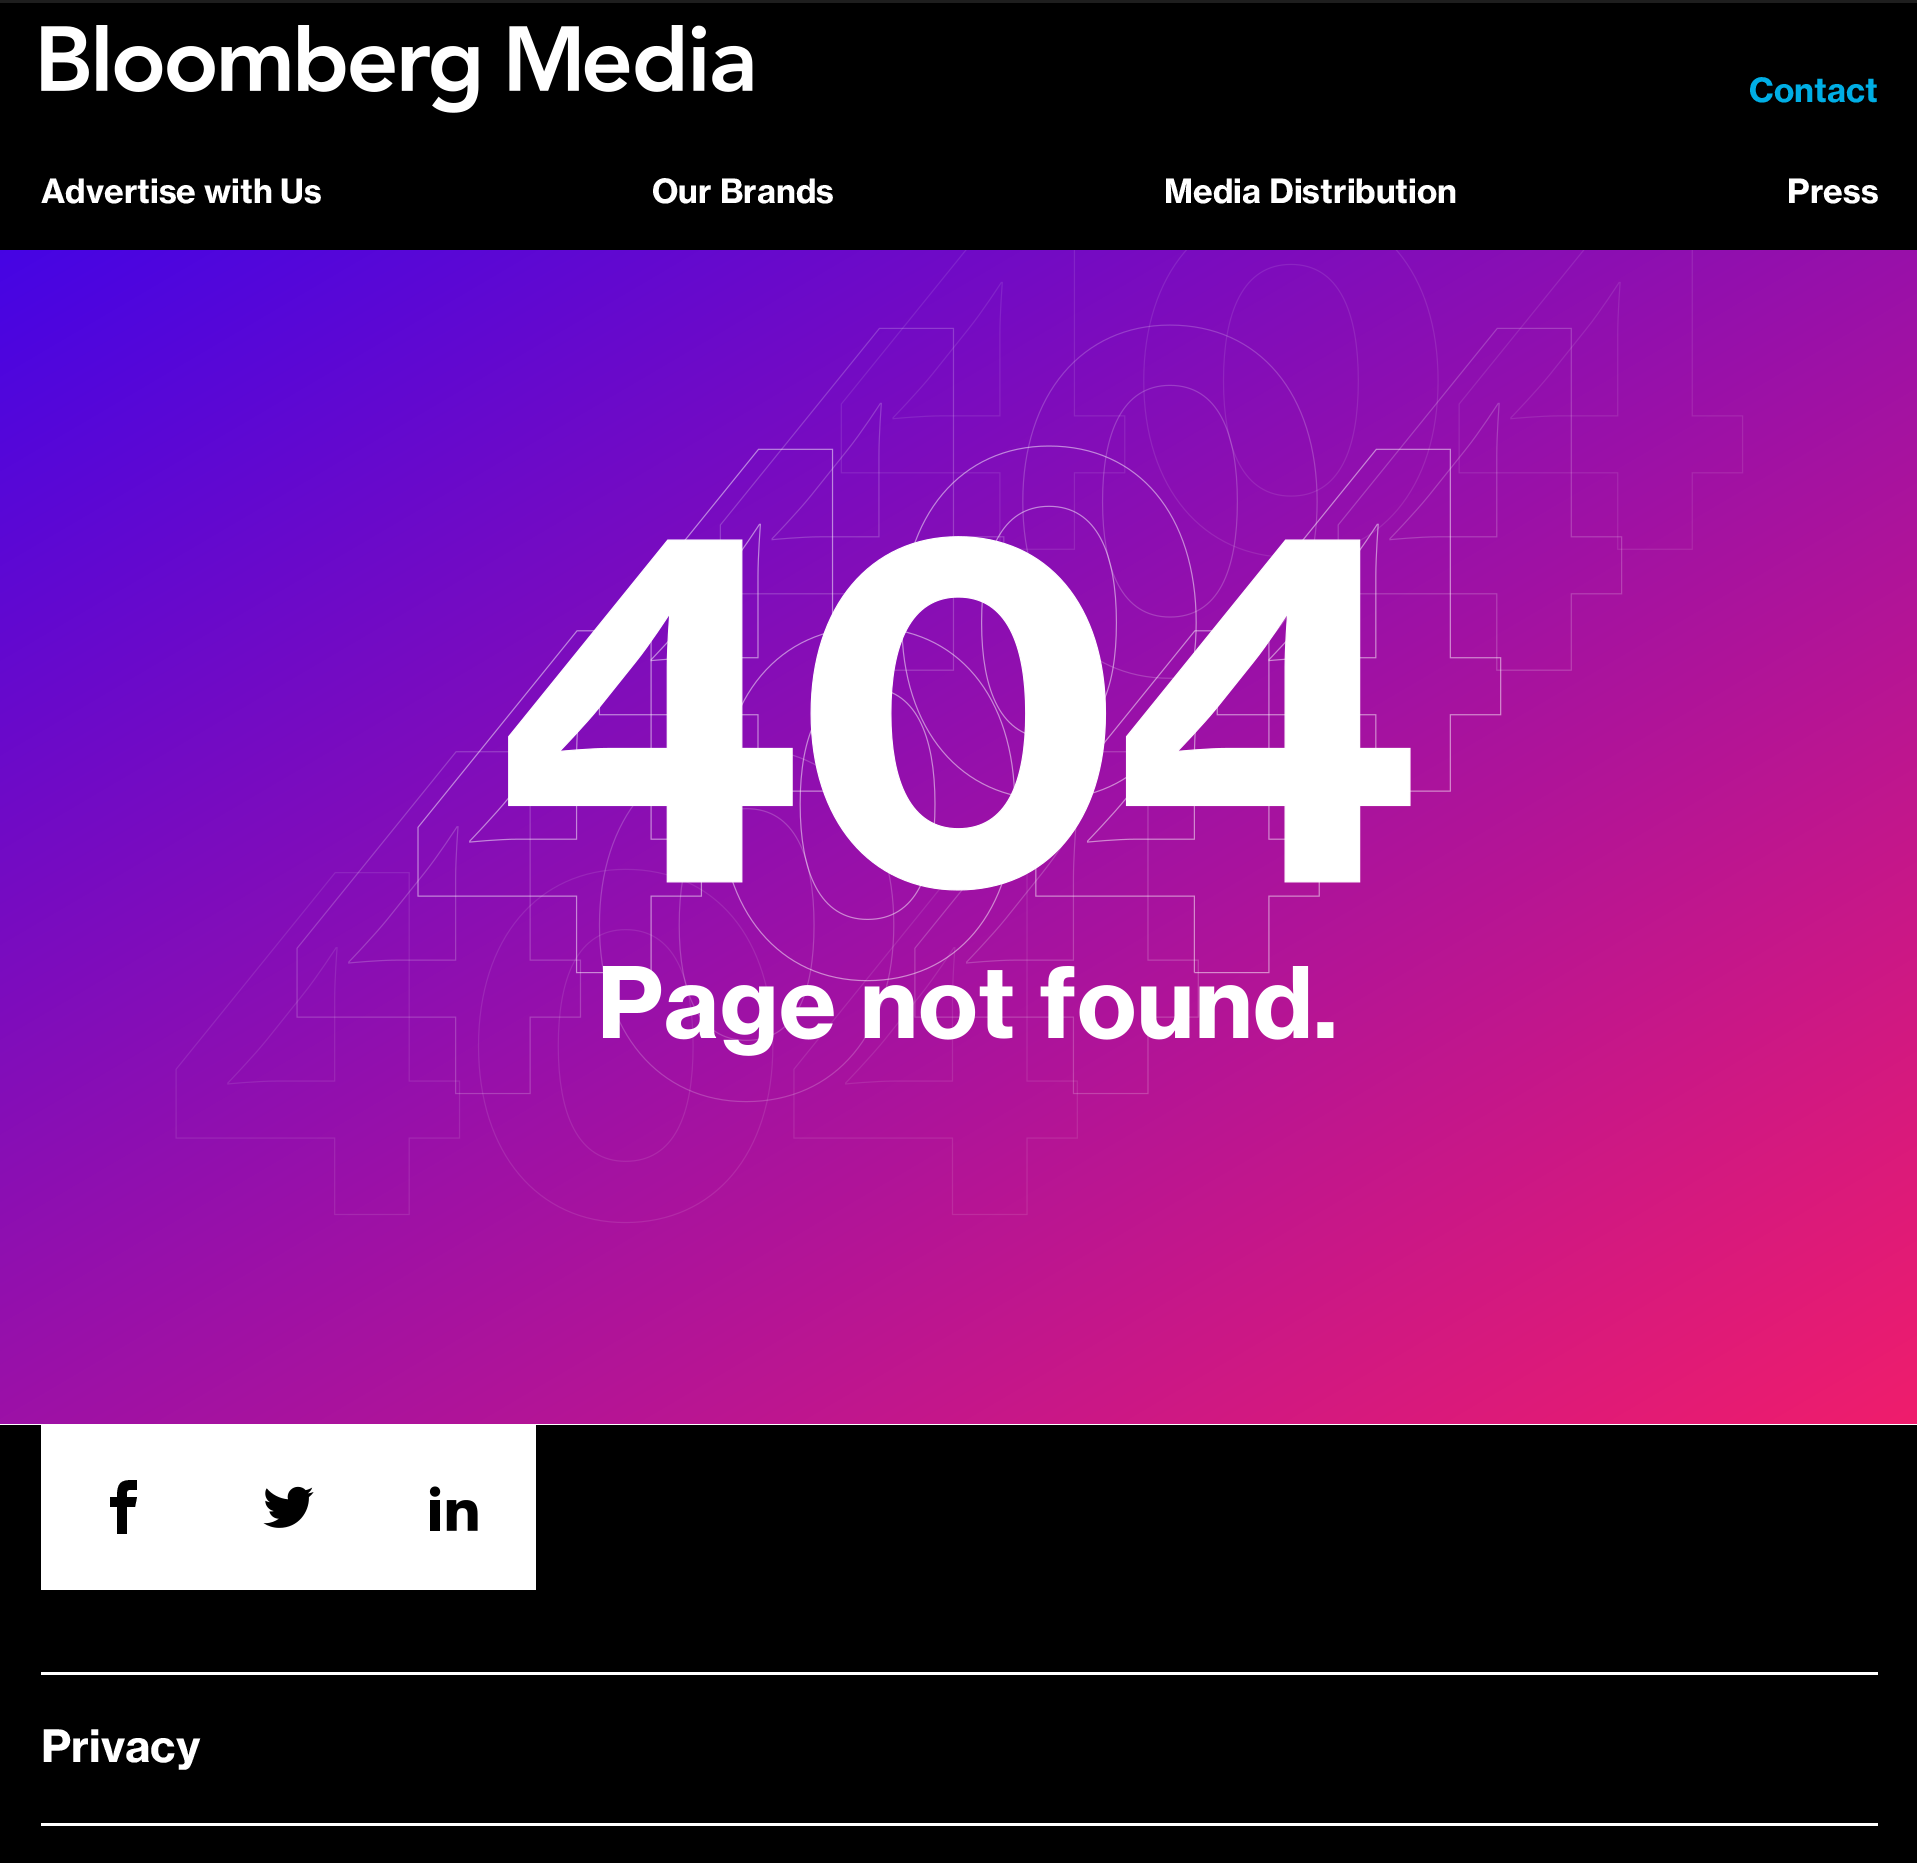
%!PS
<< /PageSize [1917 1863] >> setpagedevice
/m/moveto load def
/l/rlineto load def
/c/rcurveto load def
/z/closepath load def
/f/fill load def
/C { dup -16 bitshift 255 div exch dup -8 bitshift 255 and 255 div exch 255 and 255 div setrgbcolor } def
/F { [ exch dup neg 0 0 3 -1 roll 0 0 ] selectfont } def
/T { moveto show } def
/R { rectfill } def
/I { 5 dict begin { /h /w /y /x /name } { exch def } forall
  gsave x y translate w h scale
  w h 8 [w 0 0 h 0 0] name (r) file false 3 colorimage grestore end } def
0 1863 translate 1 -1 scale
4 setmiterlimit
16#FFFFFF C
0 0 1917 1863 R
16#1E1E1E C
0 0 1917 3 R
16#000000 C
0 3 1917 247 R
(1.rgb) 41 25 712 88 I
/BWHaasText-Bold 33 F
16#00AEE5 C
(Contact) 1749 102 T
16#FFFFFF C
(Advertise with Us) 41 203 T
(Our Brands) 652 203 T
(Media Distribution) 1164 203 T
(Press) 1787 203 T
(2.rgb) 0 250 1917 1174 I
16#000000 C
0 1425 1917 438 R
16#FFFFFF C
41 1425 495 165 R
16#000000 C
129 1490 m 8 0 l 0 -10 l -14 0 -20 0 -20 17 c -7 0 l 0 10 l 7 0 l 0 27 l 10 0 l 0 -27 l 8 0 l 2 -10 l -10 0 l 0 -2 -1 -7 2 -7 c z f
(3.rgb) 263 1486 51 42 I
(4.rgb) 429 1486 49 45 I
16#FFFFFF C
41 1672 1837 3 R
/BWHaasText-Bold 44 F
(Privacy) 41 1762 T
41 1823 1837 3 R
showpage
